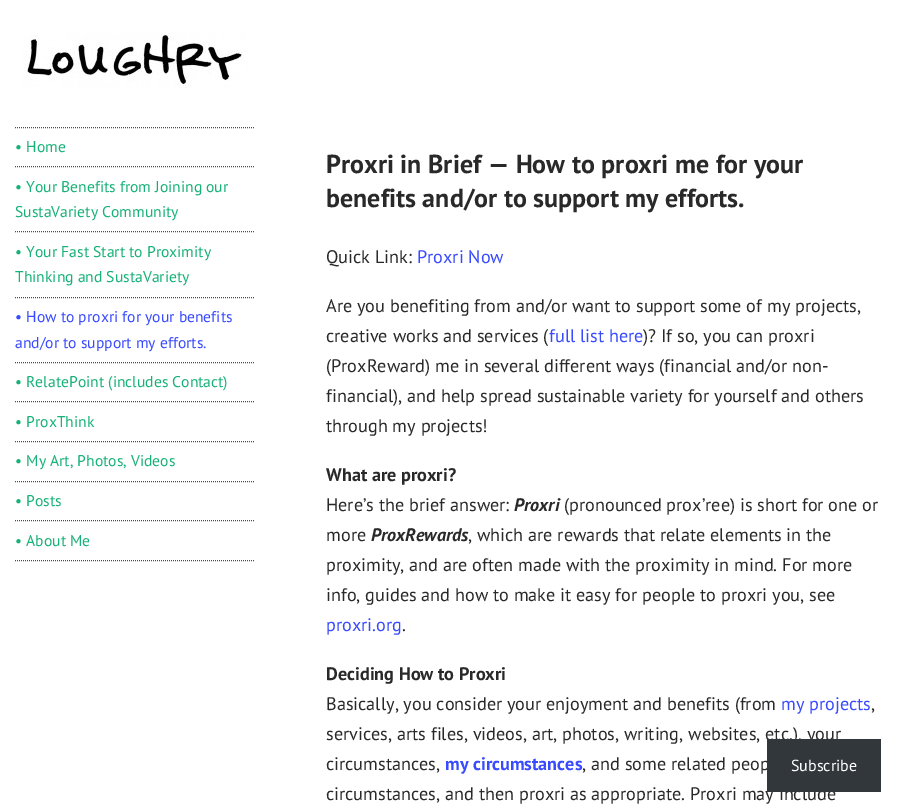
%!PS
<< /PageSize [901 812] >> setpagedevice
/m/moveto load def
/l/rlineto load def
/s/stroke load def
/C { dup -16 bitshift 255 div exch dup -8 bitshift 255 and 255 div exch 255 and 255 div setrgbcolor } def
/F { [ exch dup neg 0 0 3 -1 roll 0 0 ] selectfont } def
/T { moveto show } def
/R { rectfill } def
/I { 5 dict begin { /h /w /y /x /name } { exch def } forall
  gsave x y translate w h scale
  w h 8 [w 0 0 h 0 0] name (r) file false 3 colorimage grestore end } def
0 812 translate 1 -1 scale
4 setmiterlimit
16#FFFFFF C
0 0 901 812 R
(1.rgb) 23 33 224 55 I
16#4C4C4C C
[1 1] 0 setdash
15 127.5 m 240 0 l s
15 166.5 m 240 0 l s
/PTSans-Regular 15.6 F
16#18B17A C
(• Home) 15 152 T
16#4C4C4C C
15 231.5 m 240 0 l s
16#18B17A C
(• Your Benefits from Joining our) 15 192 T
(SustaVariety Community) 15 217 T
16#4C4C4C C
15 297.5 m 240 0 l s
16#18B17A C
(• Your Fast Start to Proximity) 15 257 T
(Thinking and SustaVariety) 15 282 T
16#4C4C4C C
15 362.5 m 240 0 l s
16#394BFF C
(• How to proxri for your benefits) 15 322 T
(and/or to support my efforts.) 15 348 T
16#4C4C4C C
15 401.5 m 240 0 l s
16#18B17A C
(• RelatePoint \(includes Contact\)) 15 387 T
16#4C4C4C C
15 441.5 m 240 0 l s
16#18B17A C
(• ProxThink) 15 427 T
16#4C4C4C C
15 481.5 m 240 0 l s
16#18B17A C
(• My Art, Photos, Videos) 15 466 T
16#4C4C4C C
15 520.5 m 240 0 l s
16#18B17A C
(• Posts) 15 506 T
16#4C4C4C C
15 560.5 m 240 0 l s
16#18B17A C
(• About Me) 15 546 T
/PTSans-Bold 26 F
16#292929 C
(Proxri in Brief — How to proxri me for your) 326 173 T
(benefits and/or to support my efforts.) 326 207 T
/PTSans-Regular 18.2 F
(Quick Link:) 326 263 T
16#394BFF C
(Proxri Now) 417 263 T
16#292929 C
(Are you benefiting from and/or want to support some of my projects,) 326 312 T
(creative works and services \() 326 342 T
16#394BFF C
(full list here) 549 342 T
16#292929 C
(\)? If so, you can proxri) 643 342 T
(\(ProxReward\) me in several different ways \(financial and/or non-) 326 372 T
(financial\), and help spread sustainable variety for yourself and others) 326 402 T
(through my projects!) 326 432 T
/PTSans-Bold 18.2 F
(What are proxri?) 326 481 T
/PTSans-Regular 18.2 F
(Here’s the brief answer:) 326 511 T
/PTSans-BoldItalic 18.2 F
(Proxri) 514 511 T
/PTSans-Regular 18.2 F
(\(pronounced prox’ree\) is short for one or) 564 511 T
(more) 326 541 T
/PTSans-BoldItalic 18.2 F
(ProxRewards) 371 541 T
/PTSans-Regular 18.2 F
(, which are rewards that relate elements in the) 468 541 T
(proximity, and are often made with the proximity in mind. For more) 326 571 T
(info, guides and how to make it easy for people to proxri you, see) 326 601 T
16#394BFF C
(proxri.org) 326 631 T
16#292929 C
(.) 402 631 T
/PTSans-Bold 18.2 F
(Deciding How to Proxri) 326 680 T
/PTSans-Regular 18.2 F
(Basically, you consider your enjoyment and benefits \(from) 326 710 T
16#394BFF C
(my projects) 781 710 T
16#292929 C
(,) 871 710 T
(services, arts files, videos, art, photos, writing, websites, etc.\), your) 326 740 T
(circumstances,) 326 770 T
/PTSans-Bold 18.2 F
16#394BFF C
(my circumstances) 445 770 T
/PTSans-Regular 18.2 F
16#292929 C
(, and some related peop) 582 770 T
(circumstances, and then proxri as appropriate. Proxri may include) 326 800 T
16#32373C C
767 739 114 53 R
/PTSans-Regular 16 F
16#FFFFFF C
(Subscribe) 791 771 T
showpage
